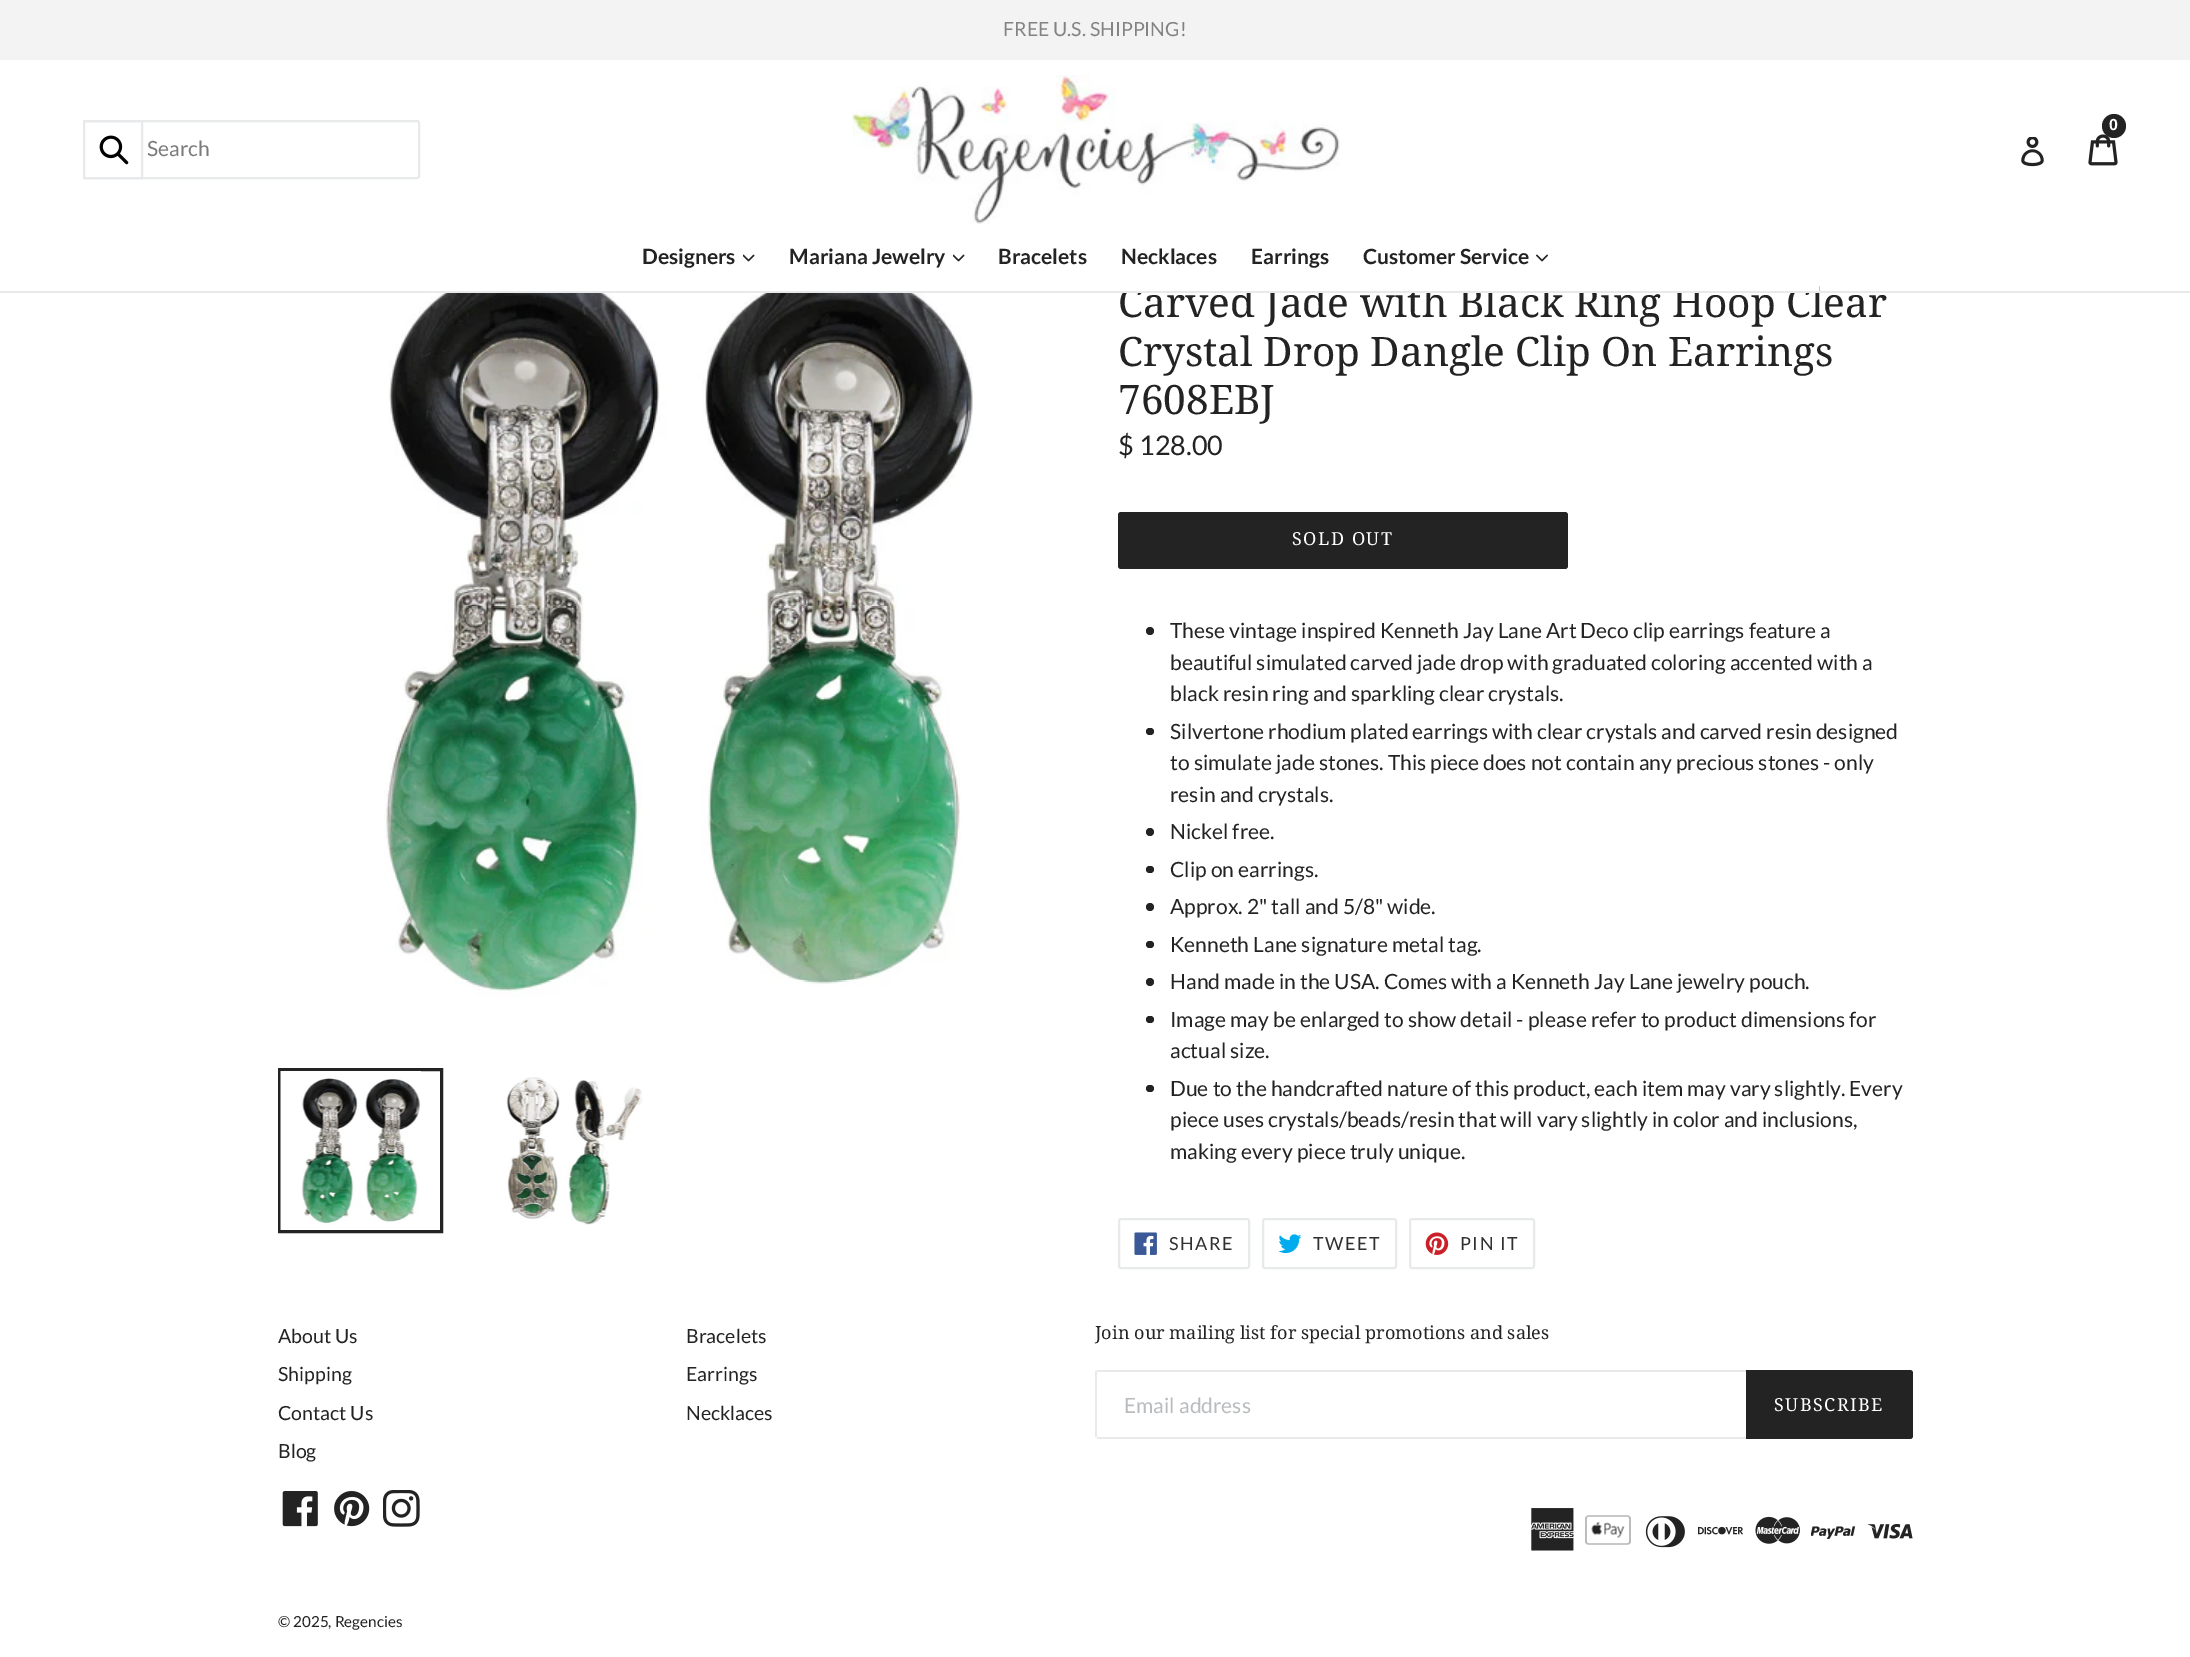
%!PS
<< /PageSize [2190 1657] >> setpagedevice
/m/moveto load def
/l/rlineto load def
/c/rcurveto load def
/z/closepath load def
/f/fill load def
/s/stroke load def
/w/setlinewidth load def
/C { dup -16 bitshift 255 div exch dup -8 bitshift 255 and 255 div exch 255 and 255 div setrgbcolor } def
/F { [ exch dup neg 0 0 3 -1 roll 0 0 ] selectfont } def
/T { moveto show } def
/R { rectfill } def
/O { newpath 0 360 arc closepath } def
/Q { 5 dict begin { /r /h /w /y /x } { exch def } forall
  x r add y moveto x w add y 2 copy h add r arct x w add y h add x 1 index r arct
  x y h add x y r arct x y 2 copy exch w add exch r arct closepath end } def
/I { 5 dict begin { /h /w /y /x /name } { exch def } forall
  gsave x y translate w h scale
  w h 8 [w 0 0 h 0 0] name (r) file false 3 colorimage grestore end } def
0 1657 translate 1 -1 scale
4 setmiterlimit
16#FFFFFF C
0 0 2190 1657 R
/DroidSerif-Regular 40.5 F
16#232323 C
(Carved Jade with Black Ring Hoop Clear) 1118 317 T
16#FFFFFF C
1124 286 695 5 R
16#F3F3F3 C
0 0 2190 60 R
/Lato-Regular 19.5 F
16#838383 C
(FREE U.S. SHIPPING!) 1003 36 T
(1.rgb) 852 75 488 149 I
(2.rgb) 2088 134 30 32 I
16#232323 C
2114 126 12 O f
/LiberationSans-Bold 16 F
16#FFFFFF C
(0) 2109 130 T
(3.rgb) 2021 137 23 30 I
16#E8E9EB C
2 w
84 121 335 57 2 Q s
16#FFFFFF C
85 122 1 55 R
16#E8E9EB C
84 121 58 57 rectstroke
(4.rgb) 99 135 30 30 I
/Lato-Regular 21 F
16#7B7B7B C
(Search) 147 156 T
16#E8E9EB C
0 291 2190 2 R
/Lato-Bold 21 F
16#232323 C
(Designers) 642 264 T
(5.rgb) 743 254 12 8 I
(Mariana Jewelry) 789 264 T
(5.rgb) 953 254 12 8 I
(Bracelets) 998 264 T
(Necklaces) 1121 264 T
(Earrings) 1251 264 T
(Customer Service) 1363 264 T
(6.rgb) 1536 254 12 8 I
(7.rgb) 384 293 589 704 I
3 w
279.5 1069.5 162 162 rectstroke
(8.rgb) 280 1071 141 159 I
(9.rgb) 506 1077 137 148 I
/DroidSerif-Regular 40.5 F
(Crystal Drop Dangle Clip On Earrings) 1118 366 T
(7608EBJ) 1118 414 T
/Lato-Regular 27 F
($ 128.00) 1118 455 T
1118 512 450 57 3 Q f
/DroidSerif-Regular 18 F
16#FFFFFF C
1292 545 m 1.5 0 (SOLD OUT) ashow
16#232323 C
1150 631 4 O f
/Lato-Regular 21 F
(These vintage inspired Kenneth Jay Lane Art Deco clip earrings feature a) 1170 638 T
(beautiful simulated carved jade drop with graduated coloring accented with a) 1170 670 T
(black resin ring and sparkling clear crystals.) 1170 701 T
1146 728 8 7 3.5 Q f
(Silvertone rhodium plated earrings with clear crystals and carved resin designed) 1170 739 T
(to simulate jade stones. This piece does not contain any precious stones - only) 1170 770 T
(resin and crystals.) 1170 802 T
1150 832 4 O f
(Nickel free.) 1170 839 T
1146 866 8 7 3.5 Q f
(Clip on earrings.) 1170 877 T
1150 907 4 O f
(Approx. 2" tall and 5/8" wide.) 1170 914 T
1146 941 8 7 3.5 Q f
(Kenneth Lane signature metal tag.) 1170 952 T
1150 982 4 O f
(Hand made in the USA. Comes with a Kenneth Jay Lane jewelry pouch.) 1170 989 T
1146 1016 8 7 3.5 Q f
(Image may be enlarged to show detail - please refer to product dimensions for) 1170 1027 T
(actual size.) 1170 1058 T
1146 1085 8 7 3.5 Q f
(Due to the handcrafted nature of this product, each item may vary slightly. Every) 1170 1096 T
(piece uses crystals/beads/resin that will vary slightly in color and inclusions,) 1170 1127 T
(making every piece truly unique.) 1170 1159 T
16#E8E9EB C
2 w
1119 1219 130 49 2 Q s
(10.rgb) 1134 1232 23 23 I
/Lato-Regular 18 F
16#303030 C
1169 1250 m 1.5 0 (SHARE) ashow
16#E8E9EB C
1263 1219 133 49 2 Q s
(11.rgb) 1278 1234 24 20 I
16#303030 C
1313 1250 m 1.5 0 (TWEET) ashow
16#E8E9EB C
1410 1219 124 49 2 Q s
(12.rgb) 1425 1232 24 23 I
16#303030 C
1460 1250 m 1.5 0 (PIN IT) ashow
/Lato-Regular 19.5 F
16#232323 C
(About Us) 278 1343 T
(Shipping) 278 1381 T
(Contact Us) 278 1420 T
(Blog) 278 1458 T
(Bracelets) 686 1343 T
(Earrings) 686 1381 T
(Necklaces) 686 1420 T
/DroidSerif-Regular 18.1 F
(Join our mailing list for special promotions and sales) 1095 1339 T
16#E8E9EB C
1097 1370 649 2 R
1097 1437 649 2 R
1095 1371 2 66 R
/Lato-Regular 21 F
16#B9BCBE C
(Email address) 1124 1413 T
16#232323 C
1746 1370 m 164 0 l 1.5 0 3 1.5 3 3 c 0 63 l 0 1.5 -1.5 3 -3 3 c -164 0 l z f
/DroidSerif-Regular 18 F
16#FFFFFF C
1774 1411 m 1.5 0 (SUBSCRIBE) ashow
(13.rgb) 282 1491 36 36 I
(14.rgb) 334 1491 36 36 I
(15.rgb) 383 1490 37 37 I
(16.rgb) 1531 1508 43 43 I
(17.rgb) 1585 1515 46 30 I
(18.rgb) 1645 1516 40 32 I
(19.rgb) 1698 1526 45 9 I
(20.rgb) 1755 1516 45 28 I
(21.rgb) 1811 1526 45 13 I
(22.rgb) 1868 1524 45 15 I
/Lato-Regular 15.25 F
16#232323 C
(© 2025, Regencies) 278 1627 T
showpage
